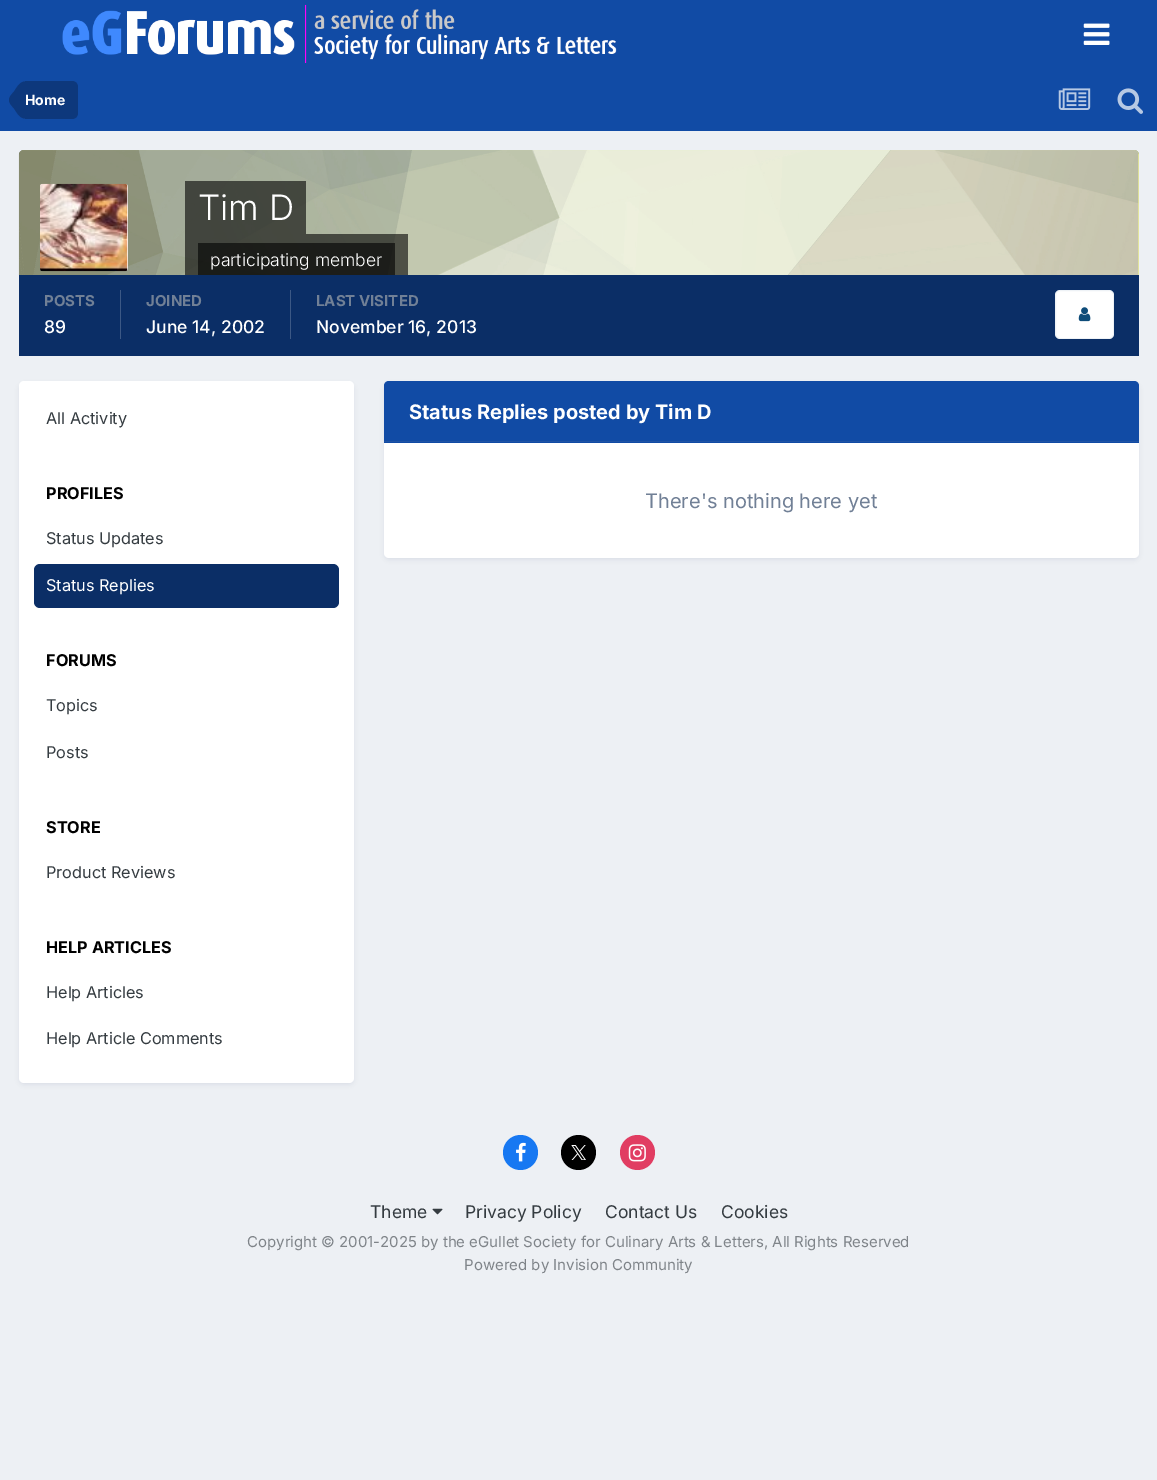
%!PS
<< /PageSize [1157 1480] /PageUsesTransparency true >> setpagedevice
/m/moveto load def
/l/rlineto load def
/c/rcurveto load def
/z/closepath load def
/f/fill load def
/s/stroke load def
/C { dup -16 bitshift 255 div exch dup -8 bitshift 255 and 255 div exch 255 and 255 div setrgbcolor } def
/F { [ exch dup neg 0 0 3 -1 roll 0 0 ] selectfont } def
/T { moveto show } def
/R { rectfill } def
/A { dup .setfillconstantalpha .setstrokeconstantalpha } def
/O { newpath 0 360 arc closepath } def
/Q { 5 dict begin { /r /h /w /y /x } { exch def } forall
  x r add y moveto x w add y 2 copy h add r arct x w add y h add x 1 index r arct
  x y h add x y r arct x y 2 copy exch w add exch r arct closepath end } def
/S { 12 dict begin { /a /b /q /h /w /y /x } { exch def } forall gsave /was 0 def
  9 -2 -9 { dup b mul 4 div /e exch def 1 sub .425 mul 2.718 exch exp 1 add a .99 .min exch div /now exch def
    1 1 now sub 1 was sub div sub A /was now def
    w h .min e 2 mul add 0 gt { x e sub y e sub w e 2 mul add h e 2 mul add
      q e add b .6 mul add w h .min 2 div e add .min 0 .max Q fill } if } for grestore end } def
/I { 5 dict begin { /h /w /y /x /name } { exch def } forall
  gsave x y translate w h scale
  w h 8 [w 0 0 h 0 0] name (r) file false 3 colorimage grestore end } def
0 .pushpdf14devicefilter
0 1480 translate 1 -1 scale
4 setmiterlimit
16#EDF0F4 C
0 0 1157 1480 R
16#114BA5 C
0 0 1157 131 R
(1.rgb) 62 4 555 59 I
(2.rgb) 1083 23 27 22 I
16#0D387C C
25 81 m 47 0 l 3.5 0 6 2.5 6 6 c 0 26 l 0 3.5 -2.5 6 -6 6 c -47 0 l z f
25 100 m 0 18.5 l -5.5 0 -8.5 -6.5 -11 -10 c -2 -2.5 -5 -5 -5 -8.5 c z 25 100 m -16 0 l 0 -3.5 3 -6 5 -8.5 c 2.5 -3.5 5.5 -10 11 -10 c z f
/Inter-Bold 14 F
16#FFFFFF C
(Home) 25 105 T
(3.rgb) 1058 88 33 22 I
(4.rgb) 1117 88 26 26 I
16#F1FF99 C
24 150 m 1110 0 l 3 0 5 2 5 5 c 0 120 l -1120 0 l 0 -120 l 0 -3 2 -5 5 -5 c z f
(5.rgb) 18 150 1121 125 I
16#FFFFFF C
40 184 88 87 2.5 Q f
(6.rgb) 40 183 88 89 I
0.6 A
16#000000 C
185 181 121 53 R
/Inter-Light 35 F
1 A
16#FFFFFF C
(Tim D) 198 220 T
0.6 A
16#000000 C
185 234 223 41 R
198 243 197 32 R
/Inter-Light 17.5 F
1 A
16#FFFFFF C
(participating member) 210 266 T
16#0B2E66 C
19 275 1120 81 R
16#3C5885 C
120 290 1 49 R
/Inter-Bold 15 F
16#718096 C
(POSTS) 44 306 T
/Inter-Medium 17.5 F
16#FFFFFF C
(89) 44 333 T
16#3C5885 C
290 290 1 49 R
/Inter-Bold 15 F
16#718096 C
(JOINED) 146 306 T
/Inter-Medium 17.5 F
16#FFFFFF C
(June 14, 2002) 146 333 T
/Inter-Bold 15 F
16#718096 C
(LAST VISITED) 316 306 T
/Inter-Medium 17.5 F
16#FFFFFF C
(November 16, 2013) 316 333 T
1055 290 59 49 5 Q f
0.07 A
16#0E4C79 C
1055.5 290.5 58 48 4.5 Q s
1 A
(7.rgb) 1078 307 13 15 I
16#0B2E66 C
20 385 333 699 4 2.5 .1 S
16#FFFFFF C
19 381 335 702 5 Q f
/Inter-Regular 16.25 F
16#353C41 C
(All Activity) 46 424 T
/Inter-Bold 16.25 F
16#000000 C
(PROFILES) 46 499 T
/Inter-Regular 16.25 F
16#353C41 C
(Status Updates) 46 544 T
16#0B2E66 C
34 564 305 44 6 Q f
16#FFFFFF C
(Status Replies) 46 591 T
/Inter-Bold 16.25 F
16#000000 C
(FORUMS) 46 666 T
/Inter-Regular 16.25 F
16#353C41 C
(Topics) 46 711 T
(Posts) 46 758 T
/Inter-Bold 16.25 F
16#000000 C
(STORE) 46 833 T
/Inter-Regular 16.25 F
16#353C41 C
(Product Reviews) 46 878 T
/Inter-Bold 16.25 F
16#000000 C
(HELP ARTICLES) 46 953 T
/Inter-Regular 16.25 F
16#353C41 C
(Help Articles) 46 998 T
(Help Article Comments) 46 1044 T
16#0B2E66 C
385 385 753 174 4 2.5 .1 S
16#FFFFFF C
384 381 755 177 5 Q f
16#114BA5 C
389 381 m 745 0 l 3 0 5 2 5 5 c 0 57 l -755 0 l 0 -57 l 0 -3 2 -5 5 -5 c z f
16#1F53A3 C
384 441 755 1 R
/Inter-Bold 20 F
16#FFFFFF C
(Status Replies posted by Tim D) 409 419 T
/Inter-Regular 20 F
16#718096 C
(There's nothing here yet) 645 508 T
16#1778F2 C
520.5 1152.5 17.5 O f
(8.rgb) 516 1142 10 20 I
16#000000 C
578.5 1152.5 17.5 O f
(9.rgb) 571 1145 15 15 I
16#E13D62 C
637.5 1152.5 17.5 O f
(10.rgb) 628 1144 18 18 I
/Inter-Regular 17.5 F
16#353C41 C
(Theme) 370 1218 T
(11.rgb) 432 1208 11 7 I
(Privacy Policy) 465 1218 T
(Contact Us) 605 1218 T
(Cookies) 721 1218 T
/Inter-Regular 15 F
16#7F8489 C
(Copyright © 2001-2025 by the eGullet Society for Culinary Arts & Letters, All Rights Reserved) 247 1247 T
(Powered by Invision Community) 464 1270 T
.poppdf14devicefilter showpage
